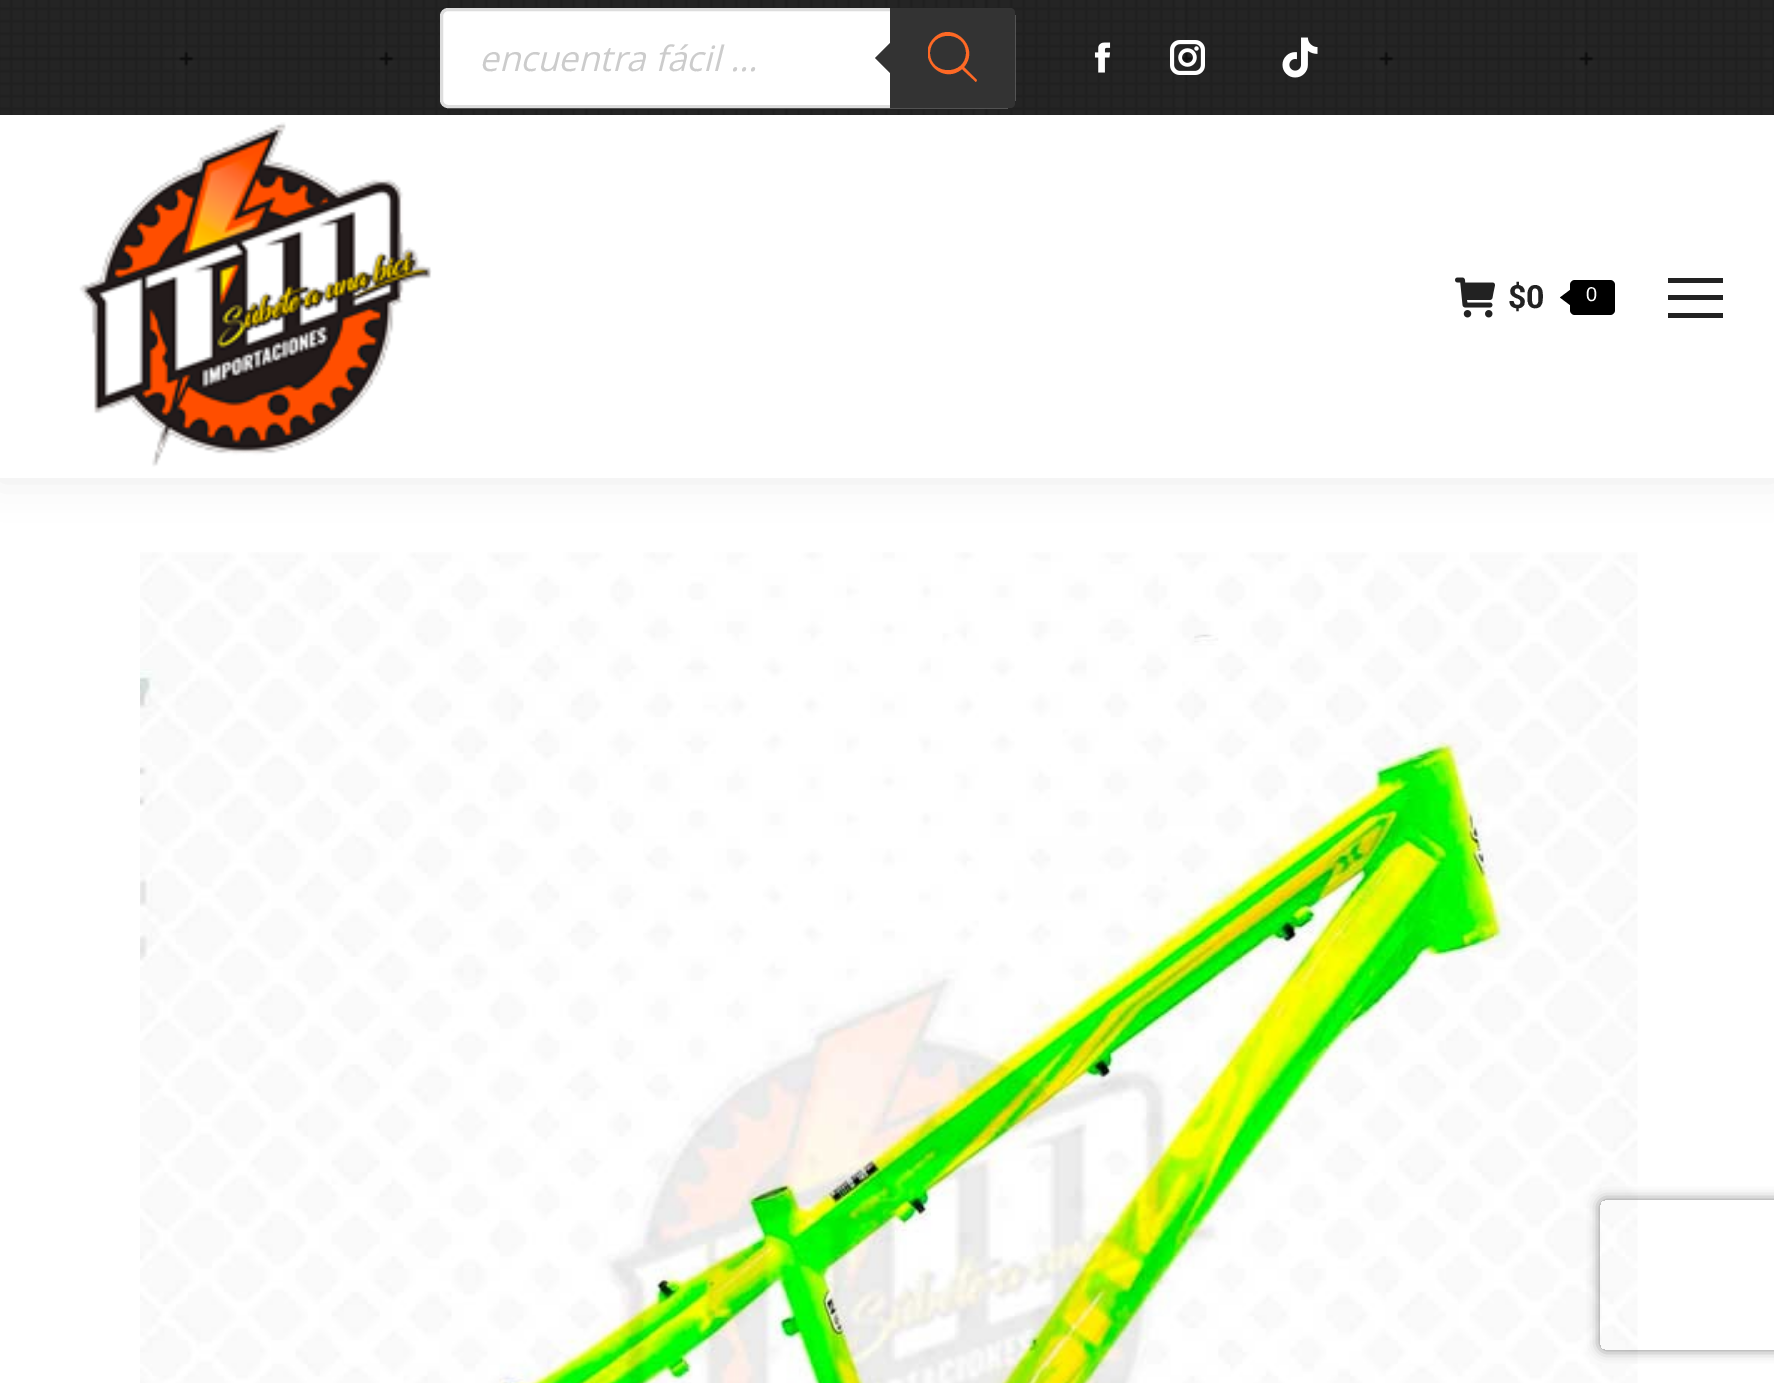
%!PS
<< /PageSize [1774 1383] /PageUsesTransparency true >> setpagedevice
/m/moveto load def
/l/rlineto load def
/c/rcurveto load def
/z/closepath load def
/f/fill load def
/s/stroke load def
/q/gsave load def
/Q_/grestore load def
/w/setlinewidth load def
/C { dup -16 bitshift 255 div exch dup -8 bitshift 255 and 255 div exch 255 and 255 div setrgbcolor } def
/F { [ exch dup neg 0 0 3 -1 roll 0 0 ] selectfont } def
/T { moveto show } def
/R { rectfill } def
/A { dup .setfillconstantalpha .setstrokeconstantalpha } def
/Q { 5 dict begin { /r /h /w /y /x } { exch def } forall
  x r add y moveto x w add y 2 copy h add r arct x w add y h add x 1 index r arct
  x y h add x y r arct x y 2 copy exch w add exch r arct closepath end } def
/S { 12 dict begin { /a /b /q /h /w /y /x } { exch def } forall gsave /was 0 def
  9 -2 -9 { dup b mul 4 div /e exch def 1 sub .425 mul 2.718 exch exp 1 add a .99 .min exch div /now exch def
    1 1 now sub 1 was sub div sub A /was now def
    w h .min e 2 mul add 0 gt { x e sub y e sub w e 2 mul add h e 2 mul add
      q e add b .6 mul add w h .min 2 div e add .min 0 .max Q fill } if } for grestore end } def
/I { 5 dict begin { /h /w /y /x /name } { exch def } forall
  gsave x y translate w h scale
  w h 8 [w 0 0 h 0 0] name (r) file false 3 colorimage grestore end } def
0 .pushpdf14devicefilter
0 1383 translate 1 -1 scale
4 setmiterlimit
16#FFFFFF C
0 0 1774 1383 R
16#000000 C
-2 -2 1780 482 0 19 .07 S
16#FFFFFF C
0 115 1774 363 R
16#000000 C
0 0 1774 115 R
(1.rgb) 0 0 1774 115 I
16#FFFFFF C
441.5 9.5 572 97 6.5 Q q f Q_
16#DDDDDD C
3 w
s
/OpenSans-Italic 35 F
16#CCCCCC C
(encuentra fácil ...) 479 71 T
16#333333 C
890 8 m 120 0 l 3 0 5 2 5 5 c 0 90 l 0 3 -2 5 -5 5 c -120 0 l z f
895 38 m 0 40 l -20 -20 l z f
q
928 25 50 65 rectclip
16#FE6925 C
977 80 m -13 -13 l 17 -20 -12 -47 -30 -29 c -19 19 8 48 28 31 c 14 13 l z 930 53 m 0 -23 36 -23 36 0 c 0 23 -36 23 -36 0 c z f
Q_
(2.rgb) 1094 42 17 31 I
(3.rgb) 1170 40 35 35 I
(4.rgb) 1282 37 36 41 I
(5.rgb) 79 122 353 345 I
(6.rgb) 1455 277 40 41 I
/Roboto-Bold 32 F
16#222222 C
($0) 1508 308 T
16#000000 C
1570 280 45 35 5 Q f
1570 290 m 0 15 l -10 -7.5 l z f
/LiberationSans-Regular 20 F
16#FFFFFF C
(0) 1586 301 T
16#222222 C
1668 278 55 5 R
1668 295 55 5 R
1668 313 55 5 R
(7.rgb) 140 552 1498 831 I
q
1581 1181 m 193 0 l 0 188 l -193 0 l z 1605 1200 m 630 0 l 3 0 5 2 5 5 c 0 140 l 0 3 -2 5 -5 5 c -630 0 l -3 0 -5 -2 -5 -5 c 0 -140 l 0 -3 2 -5 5 -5 c z eoclip newpath
16#808080 C
1600 1200 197 150 5 6 1 S
Q_
.poppdf14devicefilter showpage
